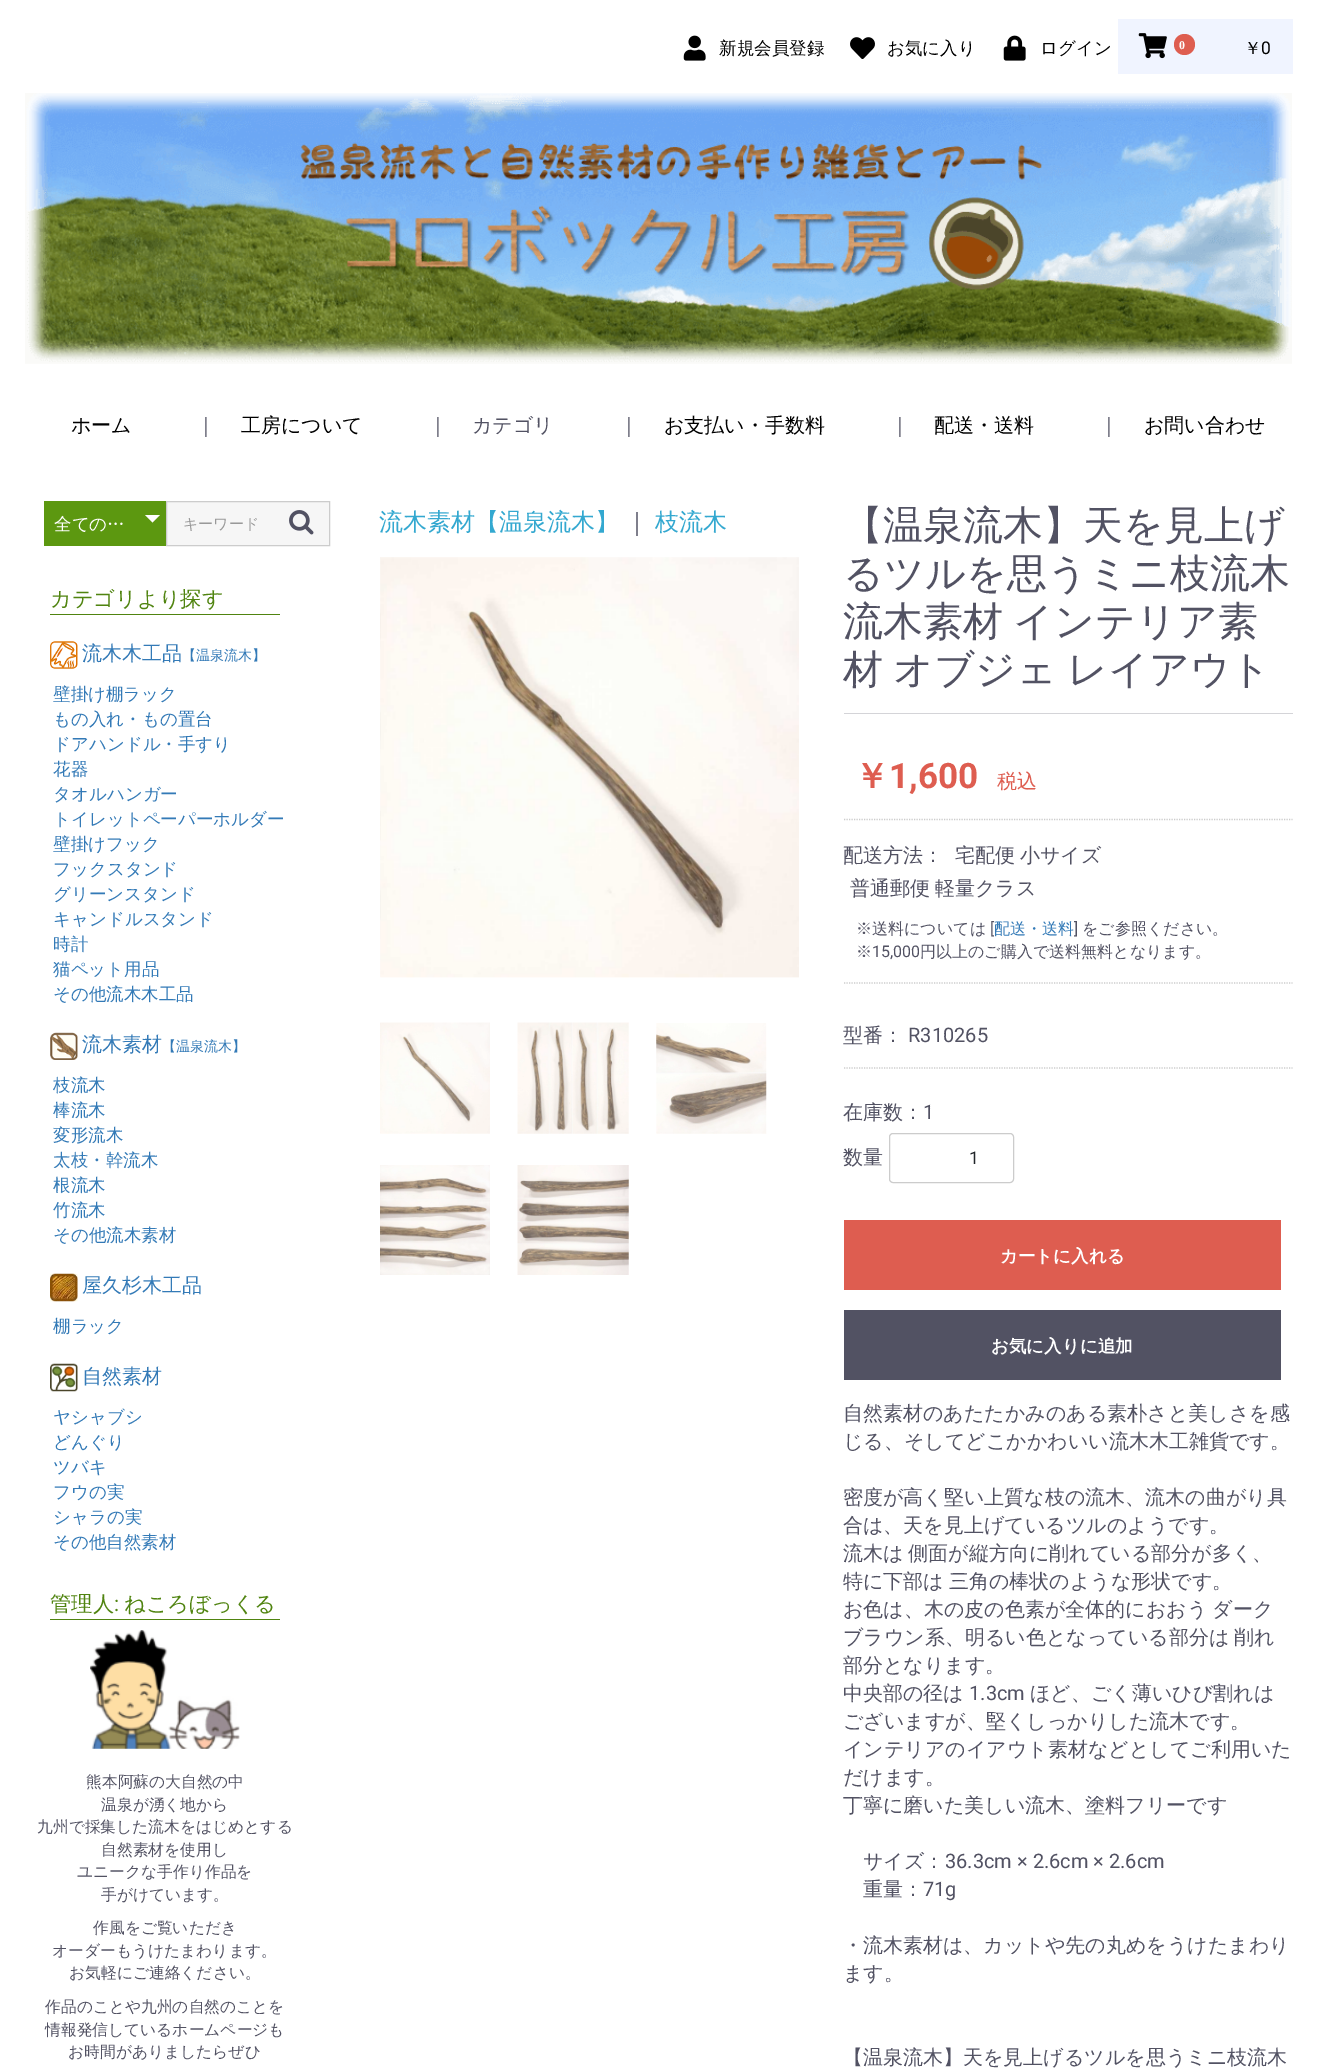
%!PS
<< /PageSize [1317 2072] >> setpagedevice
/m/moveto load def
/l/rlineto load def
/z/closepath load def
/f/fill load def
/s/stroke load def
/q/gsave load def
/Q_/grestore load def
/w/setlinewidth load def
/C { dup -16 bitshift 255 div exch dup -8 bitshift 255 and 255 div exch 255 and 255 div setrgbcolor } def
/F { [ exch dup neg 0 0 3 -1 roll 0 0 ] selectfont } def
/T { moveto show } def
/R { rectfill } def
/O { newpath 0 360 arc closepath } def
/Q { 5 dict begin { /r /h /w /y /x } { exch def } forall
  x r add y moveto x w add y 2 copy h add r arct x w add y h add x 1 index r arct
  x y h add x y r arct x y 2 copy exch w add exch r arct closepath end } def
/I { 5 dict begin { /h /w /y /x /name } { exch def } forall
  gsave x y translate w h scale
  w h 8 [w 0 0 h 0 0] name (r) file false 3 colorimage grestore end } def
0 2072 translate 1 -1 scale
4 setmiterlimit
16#FFFFFF C
0 0 1317 2072 R
(1.rgb) 683 35 23 26 I
/WenQuanYiZenHei-Medium 17.5 F
16#000000 C
(新規会員登録) 719 54 T
(2.rgb) 850 37 25 22 I
(お気に入り) 887 54 T
(3.rgb) 1003 35 23 26 I
(ログイン) 1040 54 T
16#F0F4FF C
1118 19 175 55 R
(4.rgb) 1138 33 29 26 I
16#DE5D50 C
1184.5 44.5 10.5 O f
/LiberationSerif-Bold 12 F
16#FFFFFF C
(0) 1179 49 T
/WenQuanYiZenHei-Medium 17.5 F
16#000000 C
(￥) 1244 54 T
/Roboto-Regular 17.5 F
(0) 1261 54 T
(5.rgb) 25 93 1267 271 I
/WenQuanYiZenHei-Medium 20 F
(ホーム) 71 432 T
16#525263 C
(｜) 196 432 T
16#000000 C
(工房について) 241 432 T
16#525263 C
(｜) 428 432 T
(カテゴリ) 472 432 T
(｜) 619 432 T
16#000000 C
(お支払い・手数料) 664 432 T
16#525263 C
(｜) 890 432 T
16#000000 C
(配送・送料) 934 432 T
16#525263 C
(｜) 1099 432 T
16#000000 C
(お問い合わせ) 1144 432 T
16#5C9810 C
44 501 122 45 R
/WenQuanYiZenHei-Medium 17.5 F
16#FFFFFF C
(全ての…) 54 530 T
145 515 m 15 0 l -7.5 7.5 l z f
16#F6F6F6 C
166.5 501.5 m 163 0 l 0 44 l -163 0 l z q f Q_
16#CCCCCC C
s
/WenQuanYiZenHei-Medium 15 F
16#999999 C
(キーワード) 183 529 T
(6.rgb) 289 510 25 25 I
16#508410 C
50 614 230 1 R
/WenQuanYiZenHei-Medium 21.25 F
(カテゴリより探す) 50 606 T
(7.rgb) 50 641 28 28 I
/WenQuanYiZenHei-Medium 20 F
16#337AB7 C
(流木木工品) 82 660 T
/WenQuanYiZenHei-Medium 14 F
(【温泉流木】) 182 660 T
/WenQuanYiZenHei-Medium 17.5 F
(壁掛け棚ラック) 53 700 T
(もの入れ・もの置台) 53 725 T
(ドアハンドル・手すり) 53 750 T
(花器) 53 775 T
(タオルハンガー) 53 800 T
(トイレットペーパーホルダー) 53 825 T
(壁掛けフック) 53 850 T
(フックスタンド) 53 875 T
(グリーンスタンド) 53 900 T
(キャンドルスタンド) 53 925 T
(時計) 53 950 T
(猫ペット用品) 53 975 T
(その他流木木工品) 53 1000 T
(8.rgb) 50 1032 28 28 I
/WenQuanYiZenHei-Medium 20 F
(流木素材) 82 1051 T
/WenQuanYiZenHei-Medium 14 F
(【温泉流木】) 162 1051 T
/WenQuanYiZenHei-Medium 17.5 F
(枝流木) 53 1091 T
(棒流木) 53 1116 T
(変形流木) 53 1141 T
(太枝・幹流木) 53 1166 T
(根流木) 53 1191 T
(竹流木) 53 1216 T
(その他流木素材) 53 1241 T
(9.rgb) 50 1273 28 29 I
/WenQuanYiZenHei-Medium 20 F
(屋久杉木工品) 82 1292 T
/WenQuanYiZenHei-Medium 17.5 F
(棚ラック) 53 1332 T
(10.rgb) 50 1363 28 29 I
/WenQuanYiZenHei-Medium 20 F
(自然素材) 82 1383 T
/WenQuanYiZenHei-Medium 17.5 F
(ヤシャブシ) 53 1423 T
(どんぐり) 53 1448 T
(ツバキ) 53 1473 T
(フウの実) 53 1498 T
(シャラの実) 53 1523 T
(その他自然素材) 53 1548 T
16#508410 C
50 1619 230 1 R
/WenQuanYiZenHei-Medium 21.25 F
(管理人) 50 1611 T
/Roboto-Regular 21.25 F
(:) 114 1611 T
/WenQuanYiZenHei-Medium 21.25 F
(ねころぼっくる) 124 1611 T
(11.rgb) 90 1630 150 119 I
/WenQuanYiZenHei-Medium 15.75 F
16#525263 C
(熊本阿蘇の大自然の中) 86 1787 T
(温泉が湧く地から) 101 1810 T
(九州で採集した流木をはじめとする) 37 1832 T
(自然素材を使用し) 101 1855 T
(ユニークな手作り作品を) 77 1877 T
(手がけています。) 101 1900 T
(作風をご覧いただき) 93 1933 T
(オーダーもうけたまわります。) 52 1956 T
(お気軽にご連絡ください。) 69 1978 T
(作品のことや九州の自然のことを) 45 2012 T
(情報発信しているホームページも) 45 2035 T
(お時間がありましたらぜひ) 68 2057 T
/WenQuanYiZenHei-Medium 24 F
16#33A8D0 C
(流木素材【温泉流木】) 379 530 T
16#525263 C
(｜) 625 530 T
16#33A8D0 C
(枝流木) 655 530 T
(12.rgb) 380 557 1 420 I
(13.rgb) 380 557 419 421 I
(14.rgb) 380 1022 110 112 I
(15.rgb) 517 1022 112 112 I
(16.rgb) 656 1023 111 111 I
(17.rgb) 380 1165 110 110 I
(18.rgb) 517 1165 112 110 I
/WenQuanYiZenHei-Medium 40 F
16#525263 C
(【温泉流木】天を見上げ) 843 539 T
(るツルを思うミニ枝流木) 843 587 T
843 635 m -2 0 32 (流木素材 インテリア素) widthshow
843 683 m -2 0 32 (材 オブジェ レイアウト) widthshow
16#D4D4D8 C
844 713 449 1 R
16#CCCCCC C
1.2 w
[1.25 1.25] 0 setdash
844 819.5 m 448.5 0 l s
/WenQuanYiZenHei-Bold 35 F
16#DE5D50 C
(￥) 854 788 T
/Roboto-Bold 35 F
(1,600) 889 788 T
/WenQuanYiZenHei-Medium 20 F
(税込) 997 788 T
16#CCCCCC C
844 983 m 448.5 0 l s
16#525263 C
(配送方法：) 843 862 T
955 862 m -1 0 32 (宅配便 小サイズ) widthshow
850 895 m -1 0 32 (普通郵便 軽量クラス) widthshow
/WenQuanYiZenHei-Medium 16 F
(※送料については) 856 934 T
/Roboto-Regular 16 F
([) 990 934 T
/WenQuanYiZenHei-Medium 16 F
16#337AB7 C
(配送・送料) 994 934 T
/Roboto-Regular 16 F
16#525263 C
(]) 1074 934 T
/WenQuanYiZenHei-Medium 16 F
(をご参照ください。) 1082 934 T
(※) 856 957 T
/Roboto-Regular 16 F
(15,000) 872 957 T
/WenQuanYiZenHei-Medium 16 F
(円以上のご購入で送料無料となります。) 920 957 T
16#CCCCCC C
844 1068 m 448.5 0 l s
/WenQuanYiZenHei-Medium 20 F
16#525263 C
(型番：) 843 1042 T
/Roboto-Regular 20 F
(R310265) 908 1042 T
/WenQuanYiZenHei-Medium 20 F
(在庫数：) 843 1119 T
/Roboto-Regular 20 F
(1) 923 1119 T
/WenQuanYiZenHei-Medium 20 F
(数量) 843 1164 T
16#CCCCCC C
1 w
[] 0 setdash
889.5 1133.5 124 49 3.5 Q s
/Roboto-Regular 17.5 F
16#212529 C
(1) 969 1164 T
16#DE5D50 C
844 1220 437 70 R
/WenQuanYiZenHei-Bold 17.5 F
16#FFFFFF C
(カートに入れる) 1000 1262 T
16#525263 C
844 1310 437 70 R
16#FFFFFF C
(お気に入りに追加) 991 1352 T
/WenQuanYiZenHei-Medium 20 F
16#525263 C
(自然素材のあたたかみのある素朴さと美しさを感) 843 1420 T
(じる、そしてどこかかわいい流木木工雑貨です。) 843 1448 T
(密度が高く堅い上質な枝の流木、流木の曲がり具) 843 1504 T
(合は、天を見上げているツルのようです。) 843 1532 T
843 1560 m -1 0 32 (流木は 側面が縦方向に削れている部分が多く、) widthshow
843 1588 m -1 0 32 (特に下部は 三角の棒状のような形状です。) widthshow
843 1616 m -1 0 32 (お色は、木の皮の色素が全体的におおう ダーク) widthshow
843 1644 m -1 0 32 (ブラウン系、明るい色となっている部分は 削れ) widthshow
(部分となります。) 843 1672 T
(中央部の径は) 843 1700 T
/Roboto-Regular 20 F
(1.3cm) 969 1700 T
/WenQuanYiZenHei-Medium 20 F
(ほど、ごく薄いひび割れは) 1030 1700 T
(ございますが、堅くしっかりした流木です。) 843 1728 T
(インテリアのイアウト素材などとしてご利用いた) 843 1756 T
(だけます。) 843 1784 T
(丁寧に磨いた美しい流木、塗料フリーです) 843 1812 T
(サイズ：) 863 1868 T
/Roboto-Regular 20 F
(36.3cm × 2.6cm × 2.6cm) 945 1868 T
/WenQuanYiZenHei-Medium 20 F
(重量：) 863 1896 T
/Roboto-Regular 20 F
(71g) 923 1896 T
/WenQuanYiZenHei-Medium 20 F
(・流木素材は、カットや先の丸めをうけたまわり) 843 1952 T
(ます。) 843 1980 T
(【温泉流木】天を見上げるツルを思うミニ枝流木) 843 2064 T
showpage
